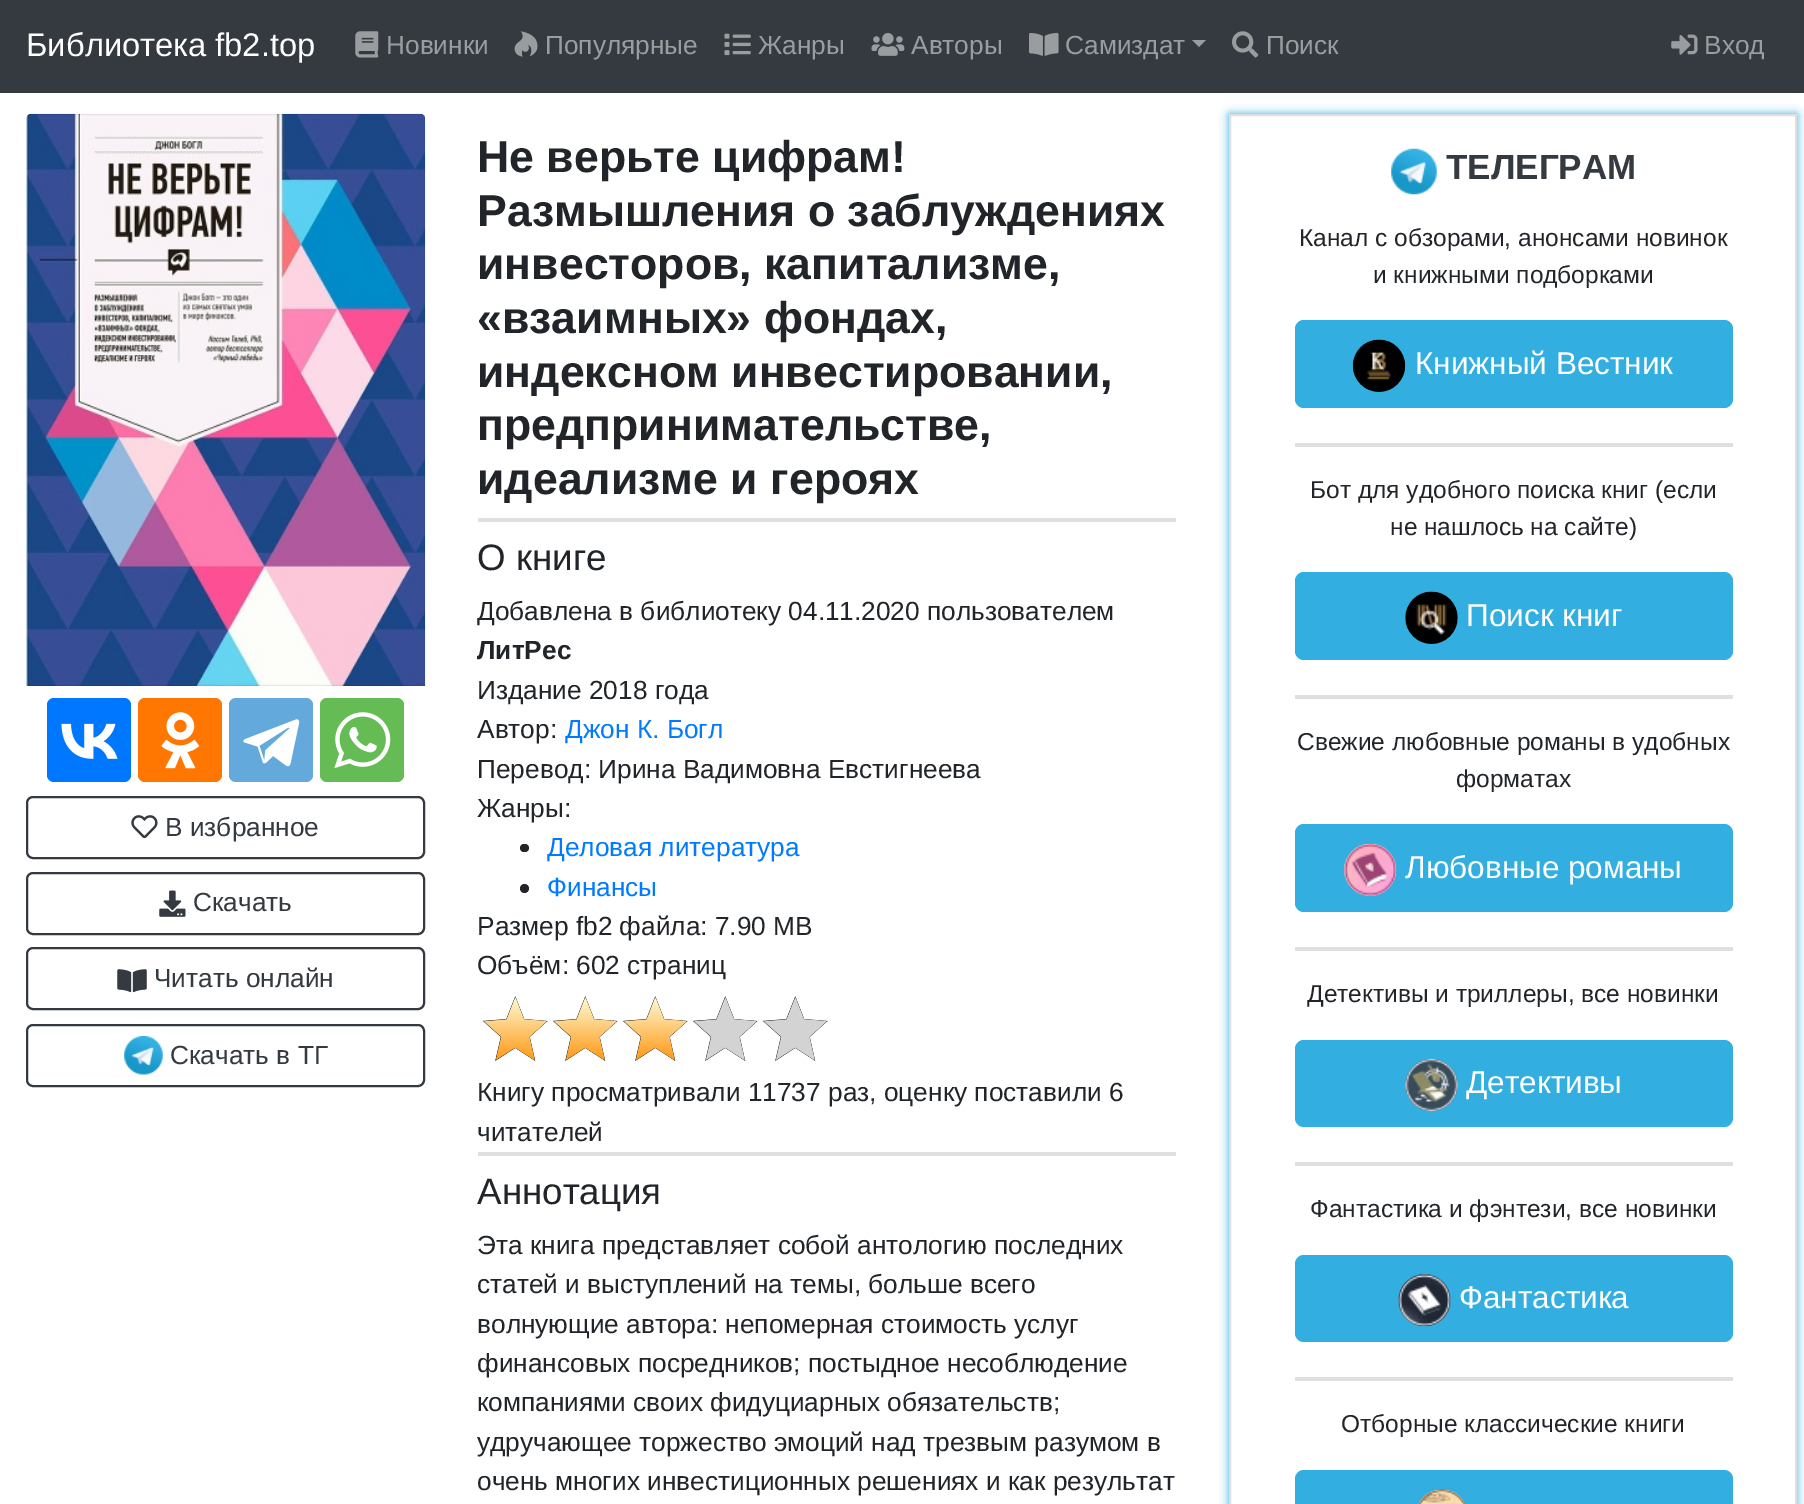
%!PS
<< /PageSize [1804 1504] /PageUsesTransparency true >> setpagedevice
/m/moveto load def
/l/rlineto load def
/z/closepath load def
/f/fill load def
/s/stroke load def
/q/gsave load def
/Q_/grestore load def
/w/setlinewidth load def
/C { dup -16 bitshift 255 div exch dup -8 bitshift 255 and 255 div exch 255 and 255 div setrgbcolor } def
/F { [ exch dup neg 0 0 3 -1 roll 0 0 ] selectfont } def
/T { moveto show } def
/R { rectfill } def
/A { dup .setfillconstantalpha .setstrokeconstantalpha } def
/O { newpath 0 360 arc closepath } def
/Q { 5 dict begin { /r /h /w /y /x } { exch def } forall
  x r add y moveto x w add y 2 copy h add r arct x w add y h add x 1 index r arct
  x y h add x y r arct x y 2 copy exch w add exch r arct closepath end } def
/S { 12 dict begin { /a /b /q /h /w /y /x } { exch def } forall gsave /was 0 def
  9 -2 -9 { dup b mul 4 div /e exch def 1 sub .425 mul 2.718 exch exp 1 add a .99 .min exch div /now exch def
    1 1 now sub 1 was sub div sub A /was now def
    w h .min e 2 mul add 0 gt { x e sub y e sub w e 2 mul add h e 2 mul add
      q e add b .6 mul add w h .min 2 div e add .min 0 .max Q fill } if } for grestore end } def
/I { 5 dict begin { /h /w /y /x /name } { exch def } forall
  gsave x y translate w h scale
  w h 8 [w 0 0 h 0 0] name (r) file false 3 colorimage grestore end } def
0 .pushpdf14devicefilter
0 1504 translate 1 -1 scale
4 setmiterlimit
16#FFFFFF C
0 0 1804 1504 R
16#343A40 C
0 0 1804 93 R
/LiberationSans-Regular 32.75 F
16#FFFFFF C
(Библиотека fb2.top) 26 56 T
(1.rgb) 355 31 24 27 I
/LiberationSans-Regular 26.25 F
16#9A9DA0 C
(Новинки) 386 54 T
(2.rgb) 514 31 24 26 I
(Популярные) 545 54 T
(3.rgb) 724 33 27 23 I
(Жанры) 758 54 T
(4.rgb) 871 33 34 23 I
(Авторы) 911 54 T
(5.rgb) 1029 32 30 24 I
(Самиздат) 1065 54 T
1192 40 m 14 0 l -7 7 l z f
(6.rgb) 1232 31 27 27 I
(Поиск) 1266 54 T
(7.rgb) 1671 34 27 21 I
(Вход) 1704 54 T
(8.rgb) 26 113 400 573 I
16#0077FF C
47 698 84 84 7 Q f
(9.rgb) 61 723 57 36 I
16#FF7700 C
138 698 84 84 7 Q f
(10.rgb) 161 712 39 57 I
16#64A9DC C
229 698 84 84 7 Q f
(11.rgb) 243 719 57 48 I
16#65BC54 C
320 698 84 84 7 Q f
(12.rgb) 334 712 57 57 I
16#343A40 C
2 w
27 797 397 61 6 Q s
(13.rgb) 131 815 27 24 I
(В избранное) 165 836 T
27 873 397 61 6 Q s
(14.rgb) 159 890 27 27 I
(Скачать) 193 911 T
27 948 397 61 6 Q s
(15.rgb) 117 969 30 24 I
(Читать онлайн) 154 987 T
27 1025 397 61 6 Q s
(16.rgb) 124 1036 39 39 I
(Скачать в ТГ) 170 1064 T
/LiberationSans-Bold 44.6 F
16#212529 C
(Не верьте цифрам!) 477 172 T
(Размышления о заблуждениях) 477 226 T
(инвесторов, капитализме,) 477 279 T
(«взаимных» фондах,) 477 333 T
(индексном инвестировании,) 477 387 T
(предпринимательстве,) 477 440 T
(идеализме и героях) 477 494 T
16#DFDFDF C
478 518 698 4 R
/LiberationSans-Regular 36.75 F
16#212529 C
(О книге) 477 570 T
/LiberationSans-Regular 26.25 F
(Добавлена в библиотеку 04.11.2020 пользователем) 477 620 T
/LiberationSans-Bold 26.25 F
(ЛитРес) 477 659 T
/LiberationSans-Regular 26.25 F
(Издание 2018 года) 477 699 T
(Автор:) 477 738 T
16#007BFF C
(Джон К. Богл) 565 738 T
16#212529 C
(Перевод: Ирина Вадимовна Евстигнеева) 477 778 T
(Жанры:) 477 817 T
520 844 9 8 4 Q f
16#007BFF C
(Деловая литература) 547 856 T
16#212529 C
524.5 888.5 4.5 O f
16#007BFF C
(Финансы) 547 896 T
16#212529 C
(Размер fb2 файла: 7.90 MB) 477 935 T
(Объём: 602 страниц) 477 974 T
(17.rgb) 483 996 65 65 I
(17.rgb) 553 996 65 65 I
(17.rgb) 623 996 65 65 I
(18.rgb) 693 996 65 65 I
(18.rgb) 763 996 65 65 I
(Книгу просматривали 11737 раз, оценку поставили 6) 477 1101 T
(читателей) 477 1141 T
16#DFDFDF C
478 1152 698 4 R
/LiberationSans-Regular 36.75 F
16#212529 C
(Аннотация) 477 1204 T
/LiberationSans-Regular 26.25 F
(Эта книга представляет собой антологию последних) 477 1254 T
(статей и выступлений на темы, больше всего) 477 1293 T
(волнующие автора: непомерная стоимость услуг) 477 1333 T
(финансовых посредников; постыдное несоблюдение) 477 1372 T
(компаниями своих фидуциарных обязательств;) 477 1411 T
(удручающее торжество эмоций над трезвым разумом в) 477 1451 T
(очень многих инвестиционных решениях и как результат) 477 1490 T
q
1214 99 m 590 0 l 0 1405 l -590 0 l z 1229 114 m 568 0 l 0 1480 l -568 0 l z eoclip newpath
16#32AEE1 C
1229 114 568 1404 0 4.5 1 S
Q_
16#DFDFDF C
1230 115 566 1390 rectstroke
(19.rgb) 1391 148 46 47 I
/LiberationSans-Bold 35 F
16#343A40 C
(ТЕЛЕГРАМ) 1446 179 T
/LiberationSans-Regular 24.5 F
16#212529 C
(Канал с обзорами, анонсами новинок) 1299 246 T
(и книжными подборками) 1373 283 T
16#32AEE1 C
1295 320 438 88 9 Q f
(20.rgb) 1352 339 54 53 I
/LiberationSans-Regular 31.5 F
16#FFFFFF C
(Книжный Вестник) 1415 374 T
16#DFDFDF C
1295 443 438 4 R
/LiberationSans-Regular 24.5 F
16#212529 C
(Бот для удобного поиска книг \(если) 1310 498 T
(не нашлось на сайте\)) 1390 535 T
16#32AEE1 C
1295 572 438 88 9 Q f
(21.rgb) 1405 591 53 53 I
/LiberationSans-Regular 31.5 F
16#FFFFFF C
(Поиск книг) 1466 626 T
16#DFDFDF C
1295 695 438 4 R
/LiberationSans-Regular 24.5 F
16#212529 C
(Свежие любовные романы в удобных) 1297 750 T
(форматах) 1456 787 T
16#32AEE1 C
1295 824 438 88 9 Q f
(22.rgb) 1344 843 53 53 I
/LiberationSans-Regular 31.5 F
16#FFFFFF C
(Любовные романы) 1405 878 T
16#DFDFDF C
1295 947 438 4 R
/LiberationSans-Regular 24.5 F
16#212529 C
(Детективы и триллеры, все новинки) 1307 1002 T
16#32AEE1 C
1295 1040 438 87 9 Q f
(23.rgb) 1405 1058 53 54 I
/LiberationSans-Regular 31.5 F
16#FFFFFF C
(Детективы) 1466 1093 T
16#DFDFDF C
1295 1162 438 4 R
/LiberationSans-Regular 24.5 F
16#212529 C
(Фантастика и фэнтези, все новинки) 1310 1217 T
16#32AEE1 C
1295 1255 438 87 9 Q f
(24.rgb) 1398 1274 53 53 I
/LiberationSans-Regular 31.5 F
16#FFFFFF C
(Фантастика) 1459 1308 T
16#DFDFDF C
1295 1377 438 4 R
/LiberationSans-Regular 24.5 F
16#212529 C
(Отборные классические книги) 1341 1432 T
16#32AEE1 C
1295 1470 438 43 9 Q f
(25.rgb) 1418 1489 48 15 I
.poppdf14devicefilter showpage
